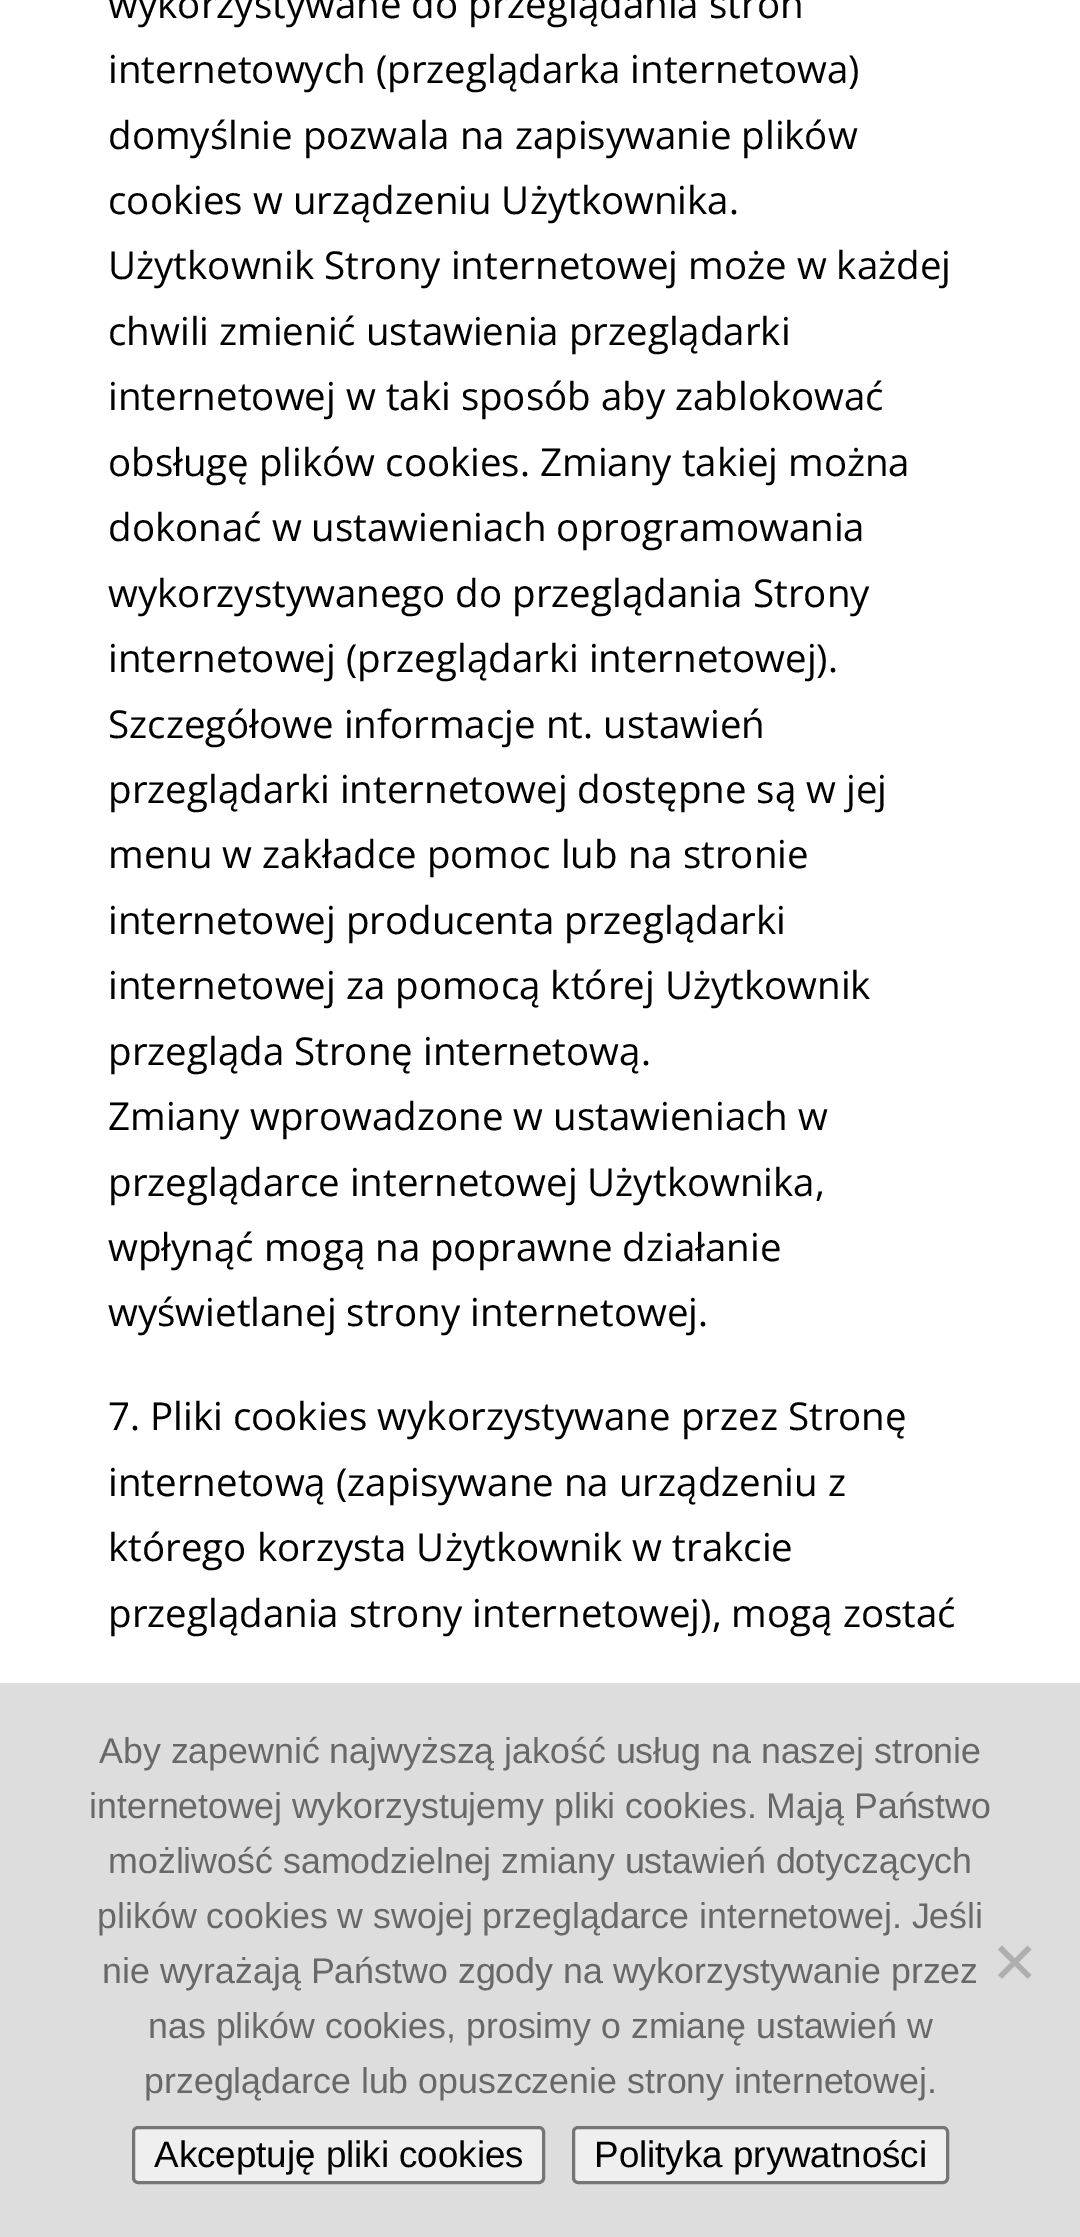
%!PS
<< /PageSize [1080 2237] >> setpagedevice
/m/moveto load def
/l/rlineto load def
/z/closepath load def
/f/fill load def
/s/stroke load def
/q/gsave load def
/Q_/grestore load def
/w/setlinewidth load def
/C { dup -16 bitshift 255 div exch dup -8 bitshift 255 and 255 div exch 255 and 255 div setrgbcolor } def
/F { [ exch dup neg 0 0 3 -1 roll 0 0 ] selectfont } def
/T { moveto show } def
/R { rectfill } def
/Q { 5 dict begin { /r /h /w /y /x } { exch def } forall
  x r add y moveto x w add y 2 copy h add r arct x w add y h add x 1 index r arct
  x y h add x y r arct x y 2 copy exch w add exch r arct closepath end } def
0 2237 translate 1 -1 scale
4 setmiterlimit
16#FFFFFF C
0 0 1080 2237 R
/OpenSans-Regular 38.5 F
16#000000 C
(wykorzystywane do przeglądania stron) 108 18 T
(internetowych \(przeglądarka internetowa\)) 108 83 T
(domyślnie pozwala na zapisywanie plików) 108 149 T
(cookies w urządzeniu Użytkownika.) 108 214 T
(Użytkownik Strony internetowej może w każdej) 108 279 T
(chwili zmienić ustawienia przeglądarki) 108 345 T
(internetowej w taki sposób aby zablokować) 108 410 T
(obsługę plików cookies. Zmiany takiej można) 108 476 T
(dokonać w ustawieniach oprogramowania) 108 541 T
(wykorzystywanego do przeglądania Strony) 108 607 T
(internetowej \(przeglądarki internetowej\).) 108 672 T
(Szczegółowe informacje nt. ustawień) 108 738 T
(przeglądarki internetowej dostępne są w jej) 108 803 T
(menu w zakładce pomoc lub na stronie) 108 868 T
(internetowej producenta przeglądarki) 108 934 T
(internetowej za pomocą której Użytkownik) 108 999 T
(przegląda Stronę internetową.) 108 1065 T
(Zmiany wprowadzone w ustawieniach w) 108 1130 T
(przeglądarce internetowej Użytkownika,) 108 1196 T
(wpłynąć mogą na poprawne działanie) 108 1261 T
(wyświetlanej strony internetowej.) 108 1326 T
(7. Pliki cookies wykorzystywane przez Stronę) 108 1430 T
(internetową \(zapisywane na urządzeniu z) 108 1496 T
(którego korzysta Użytkownik w trakcie) 108 1561 T
(przeglądania strony internetowej\), mogą zostać) 108 1627 T
16#DDDDDD C
0 1683 1080 554 R
/LiberationSans-Regular 35.75 F
16#686868 C
(Aby zapewnić najwyższą jakość usług na naszej stronie) 99 1763 T
(internetowej wykorzystujemy pliki cookies. Mają Państwo) 89 1818 T
(możliwość samodzielnej zmiany ustawień dotyczących) 108 1873 T
(plików cookies w swojej przeglądarce internetowej. Jeśli) 97 1928 T
(nie wyrażają Państwo zgody na wykorzystywanie przez) 102 1983 T
(nas plików cookies, prosimy o zmianę ustawień w) 148 2038 T
(przeglądarce lub opuszczenie strony internetowej.) 144 2093 T
16#AFAFAF C
1027.5 1945.5 m 4 4 l -29.5 29 l -4 -3.5 l z f
998 1949.5 m 4 -4 l 29.5 29.5 l -4 3.5 l z f
16#EFEFEF C
133.5 2127.5 410 55 4.5 Q q f Q_
16#767676 C
3 w
s
/LiberationSans-Regular 36.75 F
16#000000 C
(Akceptuję pliki cookies) 154 2167 T
16#EFEFEF C
573.5 2127.5 374 55 4.5 Q q f Q_
16#767676 C
s
16#000000 C
(Polityka prywatności) 594 2167 T
showpage
